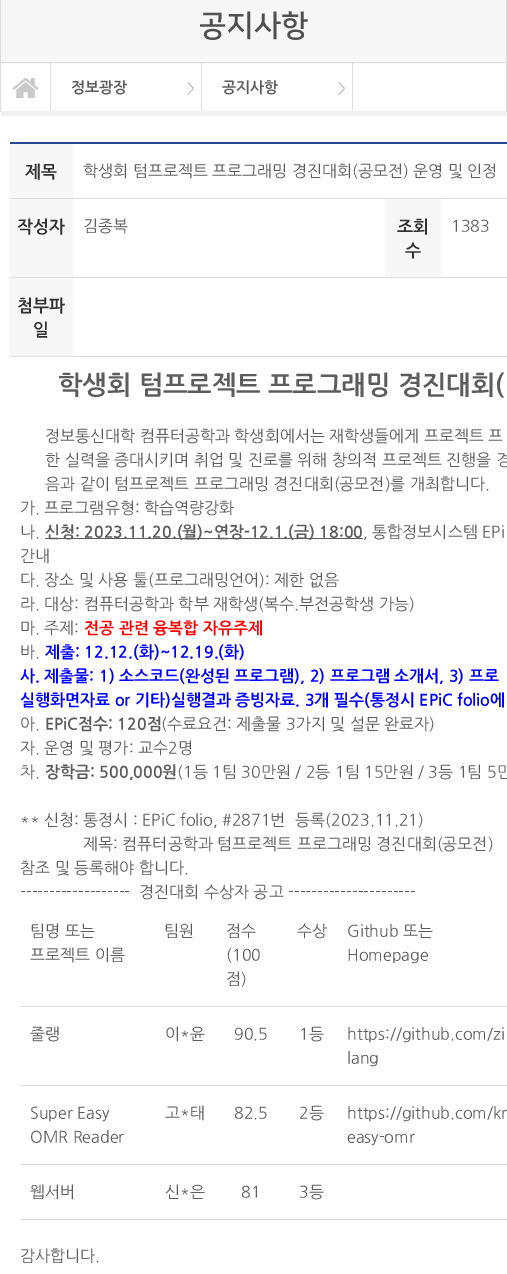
%!PS
<< /PageSize [507 1274] >> setpagedevice
/C { dup -16 bitshift 255 div exch dup -8 bitshift 255 and 255 div exch 255 and 255 div setrgbcolor } def
/F { [ exch dup neg 0 0 3 -1 roll 0 0 ] selectfont } def
/T { moveto show } def
/R { rectfill } def
/I { 5 dict begin { /h /w /y /x /name } { exch def } forall
  gsave x y translate w h scale
  w h 8 [w 0 0 h 0 0] name (r) file false 3 colorimage grestore end } def
0 1274 translate 1 -1 scale
4 setmiterlimit
16#FFFFFF C
0 0 507 1274 R
16#F7F7F7 C
1 0 505 62 R
16#DDDDDD C
506 0 1 62 R
0 0 1 62 R
/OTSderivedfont-Bold 30 F
16#505050 C
(공지사항) 199 35 T
16#DFDFDF C
.5 62.5 506 49 rectstroke
50 63 1 48 R
(1.rgb) 12 78 27 20 I
(2.rgb) 187 82 7 13 I
201 63 1 48 R
/NanumGothic-Bold 15 F
16#5C5C5C C
(정보광장) 71 92 T
(2.rgb) 338 82 7 13 I
16#DFDFDF C
352 63 1 48 R
16#5C5C5C C
(공지사항) 222 92 T
16#F0F0F0 C
1 111 505 5 R
16#294690 C
10 142 497 2 R
16#F7F7F7 C
10 144 63 54 R
/NanumGothic-Bold 17 F
16#313131 C
(제목) 25 177 T
16#DDDDDD C
10 198 497 1 R
/NanumGothic-Regular 16 F
16#5C5C5C C
(학생회 텀프로젝트 프로그래밍 경진대회\(공모전\) 운영 및 인정) 83 176 T
16#F7F7F7 C
10 199 63 78 R
/NanumGothic-Bold 17 F
16#313131 C
(작성자) 17 232 T
/NanumGothic-Regular 16 F
16#5C5C5C C
(김종복) 83 231 T
16#F7F7F7 C
385 199 56 78 R
/NanumGothic-Bold 17 F
16#313131 C
(조회) 397 232 T
(수) 405 256 T
16#DDDDDD C
10 277 497 1 R
/NanumGothic-Regular 16 F
16#5C5C5C C
(1383) 451 231 T
16#F7F7F7 C
10 278 63 78 R
/NanumGothic-Bold 17 F
16#313131 C
(첨부파) 17 311 T
(일) 33 335 T
16#DDDDDD C
10 356 497 1 R
/NanumGothic-Bold 26 F
16#5C5C5C C
(학생회 텀프로젝트 프로그래밍 경진대회\() 58 393 T
/NanumGothic-Regular 16 F
(정보통신대학 컴퓨터공학과 학생회에서는 재학생들에게 프로젝트 프) 45 441 T
(한 실력을 증대시키며 취업 및 진로를 위해 창의적 프로젝트 진행을 경) 45 465 T
(음과 같이 텀프로젝트 프로그래밍 경진대회\(공모전\)를 개최합니다.) 45 489 T
(가. 프로그램유형: 학습역량강화) 20 513 T
(나.) 20 537 T
45 538 318 1 R
/NanumGothic-Bold 16 F
(신청: 2023.11.20.\(월\)~연장-12.1.\(금\) 18:00) 45 537 T
/NanumGothic-Regular 16 F
(, 통합정보시스템 EPi) 363 537 T
(간내) 20 561 T
(다. 장소 및 사용 툴\(프로그래밍언어\): 제한 없음) 20 585 T
(라. 대상: 컴퓨터공학과 학부 재학생\(복수.부전공학생 가능\)) 20 609 T
(마. 주제:) 20 633 T
/NanumGothic-Bold 16 F
16#FF0000 C
(전공 관련 융복합 자유주제) 84 633 T
/NanumGothic-Regular 16 F
16#5C5C5C C
(바.) 20 657 T
/NanumGothic-Bold 16 F
16#0000FF C
(제출: 12.12.\(화\)~12.19.\(화\)) 45 657 T
(사. 제출물: 1\) 소스코드\(완성된 프로그램\), 2\) 프로그램 소개서, 3\) 프로) 20 681 T
(실행화면자료 or 기타\)실행결과 증빙자료. 3개 필수\(통정시 EPiC folio에) 20 705 T
/NanumGothic-Regular 16 F
16#5C5C5C C
(아.) 20 729 T
/NanumGothic-Bold 16 F
(EPiC점수: 120점) 45 729 T
/NanumGothic-Regular 16 F
(\(수료요건: 제출물 3가지 및 설문 완료자\)) 161 729 T
(자. 운영 및 평가: 교수2명) 20 753 T
(차.) 20 777 T
/NanumGothic-Bold 16 F
(장학금: 500,000원) 45 777 T
/NanumGothic-Regular 16 F
(\(1등 1팀 30만원 / 2등 1팀 15만원 / 3등 1팀 5만) 177 777 T
(** 신청: 통정시 : EPiC folio, #2871번) 20 825 T
(등록\(2023.11.21\)) 295 825 T
(제목: 컴퓨터공학과 텀프로젝트 프로그래밍 경진대회\(공모전\)) 83 849 T
(참조 및 등록해야 합니다.) 20 873 T
(-------------------  경진대회 수상자 공고 ----------------------) 20 897 T
16#DDDDDD C
20 1006 487 1 R
16#5C5C5C C
(팀명 또는) 30 936 T
(프로젝트 이름) 30 960 T
(팀원) 164 936 T
(점수) 226 936 T
(\(100) 226 960 T
(점\)) 226 984 T
(수상) 297 936 T
(Github 또는) 347 936 T
(Homepage) 347 960 T
16#DDDDDD C
20 1085 487 1 R
16#5C5C5C C
(줄랭) 30 1039 T
(이*윤) 165 1039 T
(90.5) 234 1039 T
(1등) 299 1039 T
(https://github.com/zi) 347 1039 T
(lang) 347 1063 T
16#DDDDDD C
20 1164 487 1 R
16#5C5C5C C
(Super Easy) 30 1118 T
(OMR Reader) 30 1142 T
(고*태) 165 1118 T
(82.5) 234 1118 T
(2등) 299 1118 T
(https://github.com/kr) 347 1118 T
(easy-omr) 347 1142 T
16#DDDDDD C
20 1219 487 1 R
16#5C5C5C C
(웹서버) 30 1197 T
(신*은) 165 1197 T
(81) 241 1197 T
(3등) 299 1197 T
(감사합니다.) 20 1261 T
showpage
